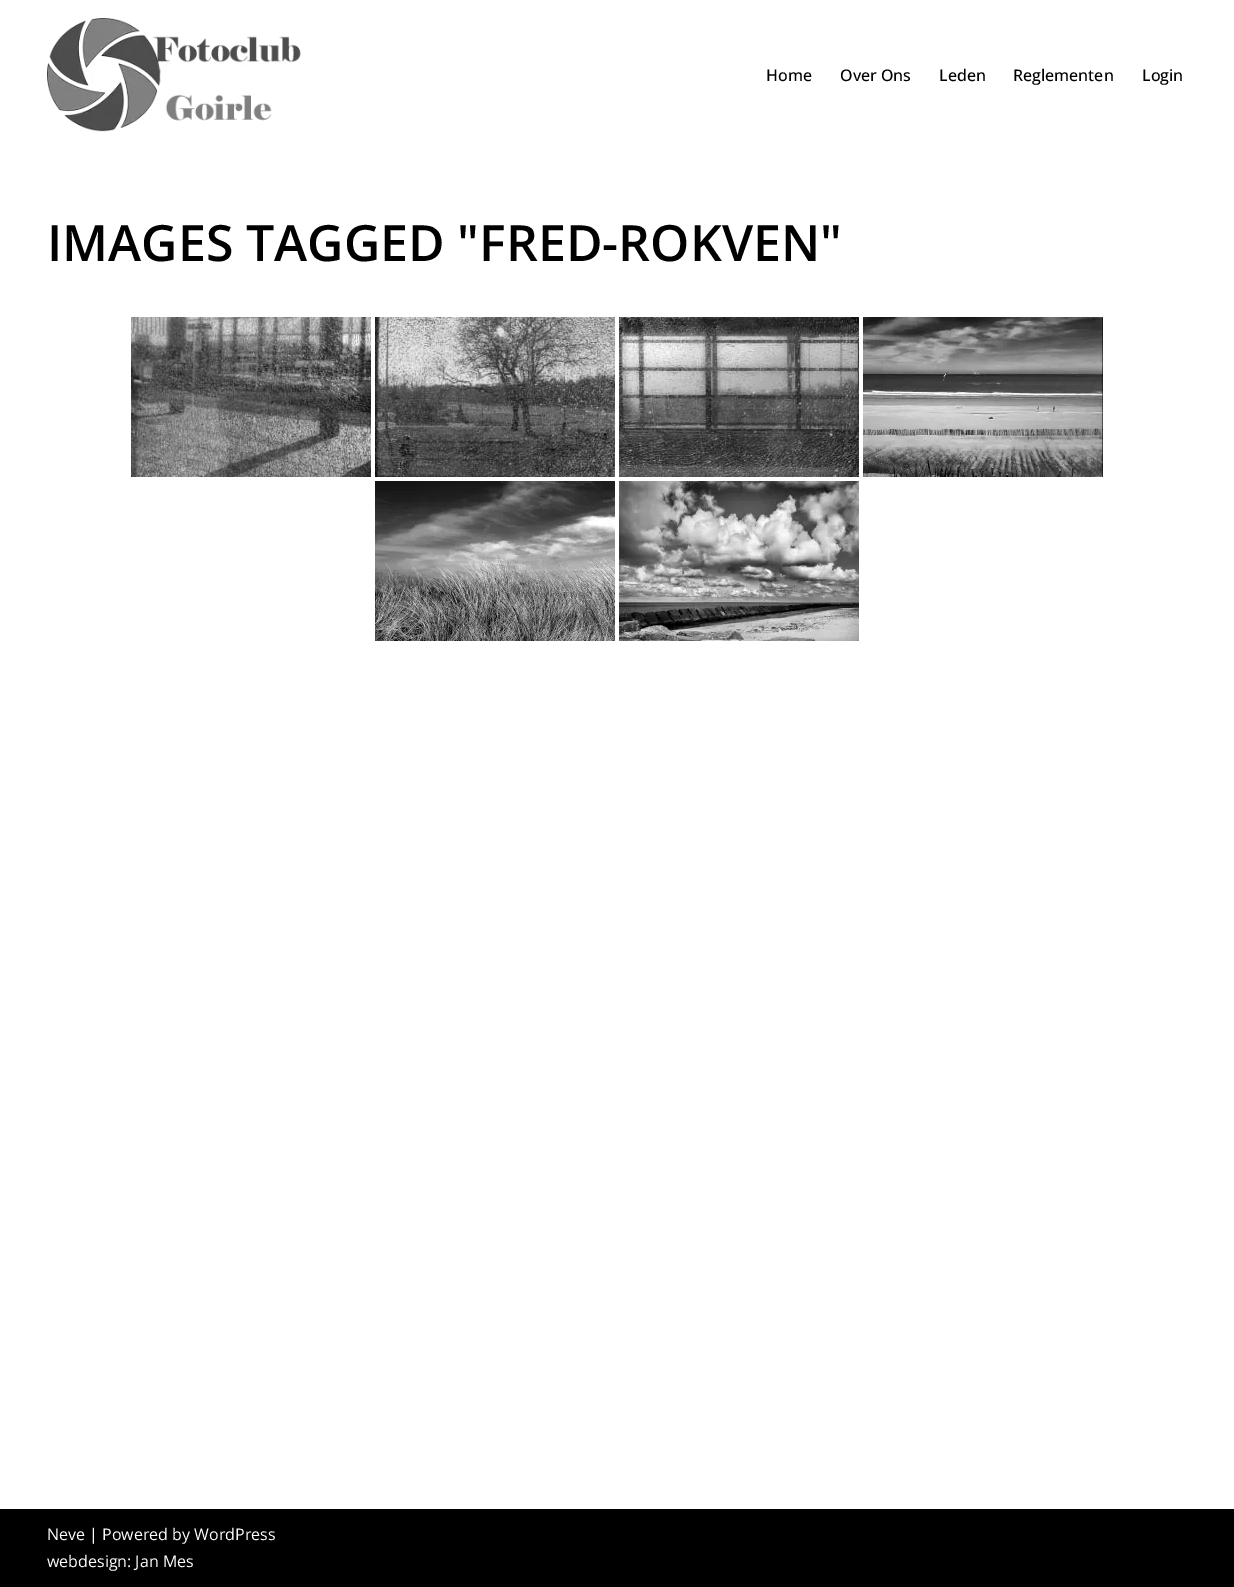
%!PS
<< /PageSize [1234 1587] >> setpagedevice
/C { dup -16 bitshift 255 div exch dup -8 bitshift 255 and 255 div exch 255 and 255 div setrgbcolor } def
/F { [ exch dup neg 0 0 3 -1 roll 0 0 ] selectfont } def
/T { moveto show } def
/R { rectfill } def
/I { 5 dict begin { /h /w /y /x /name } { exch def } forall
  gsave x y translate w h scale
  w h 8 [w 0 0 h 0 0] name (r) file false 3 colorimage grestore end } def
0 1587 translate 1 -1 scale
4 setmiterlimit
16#FFFFFF C
0 0 1234 1587 R
(1.rgb) 47 18 254 114 I
/OpenSans-Medium 16 F
16#000000 C
(Home) 766 81 T
(Over Ons) 840 81 T
(Leden) 939 81 T
(Reglementen) 1013 81 T
(Login) 1142 81 T
/OpenSans-SemiBold 50 F
(IMAGES TAGGED "FRED-ROKVEN") 47 261 T
(2.rgb) 131 317 240 160 I
(3.rgb) 375 317 240 160 I
(4.rgb) 619 317 240 160 I
(5.rgb) 863 317 240 160 I
(6.rgb) 375 481 240 160 I
(7.rgb) 619 481 240 160 I
0 1509 1234 78 R
/OpenSans-Regular 16 F
16#FFFFFF C
(Neve | Powered by WordPress) 47 1540 T
(webdesign: Jan Mes) 47 1567 T
showpage
